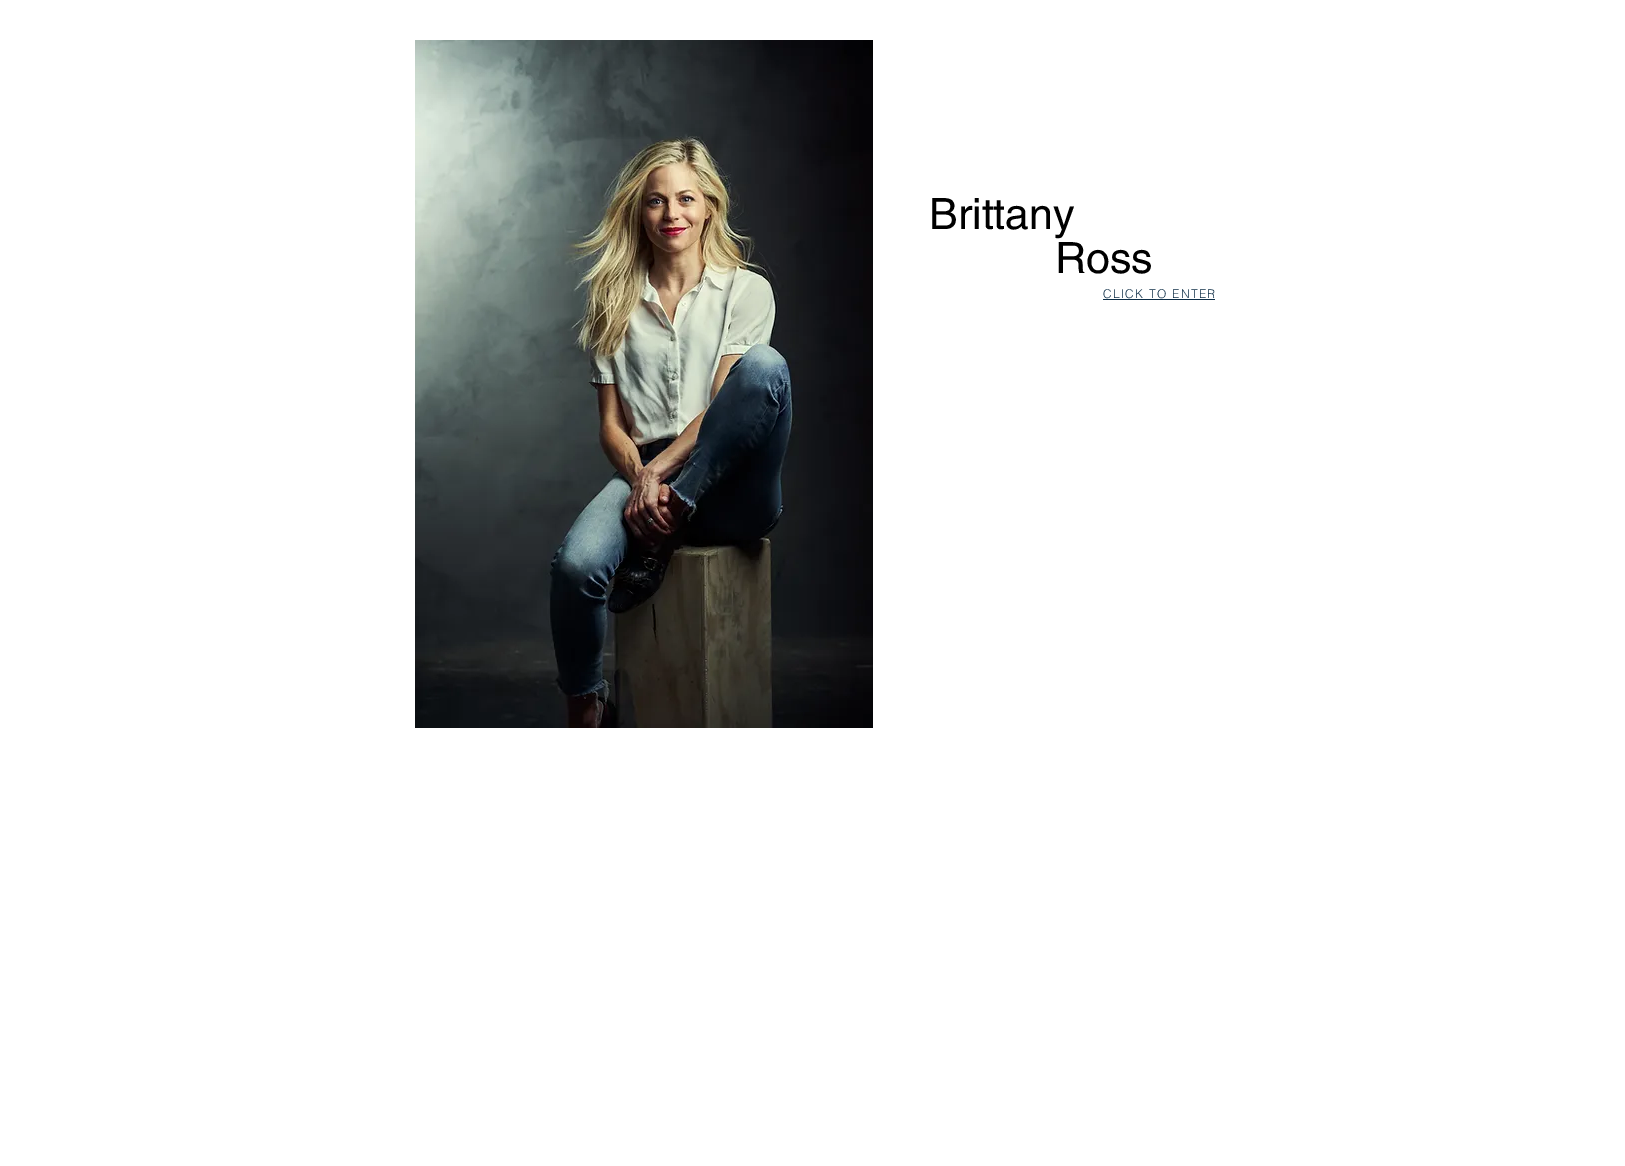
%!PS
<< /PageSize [1625 1166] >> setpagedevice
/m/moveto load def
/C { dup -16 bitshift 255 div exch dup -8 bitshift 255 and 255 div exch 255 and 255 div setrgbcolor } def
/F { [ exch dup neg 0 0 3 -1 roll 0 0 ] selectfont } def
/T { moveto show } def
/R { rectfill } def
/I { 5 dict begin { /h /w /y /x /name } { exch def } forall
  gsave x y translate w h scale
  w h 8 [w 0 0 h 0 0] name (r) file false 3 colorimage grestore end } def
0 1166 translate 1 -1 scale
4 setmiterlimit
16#FFFFFF C
0 0 1625 1166 R
(1.rgb) 415 40 458 688 I
/helvetica-Regular 43 F
16#000000 C
(Brittany) 929 229 T
(Ross) 1055 273 T
/helvetica-Light 12 F
16#0E2E47 C
1103 298 m 1.25 0 (CLICK TO ENTER) ashow
1103 299 112 1 R
showpage
